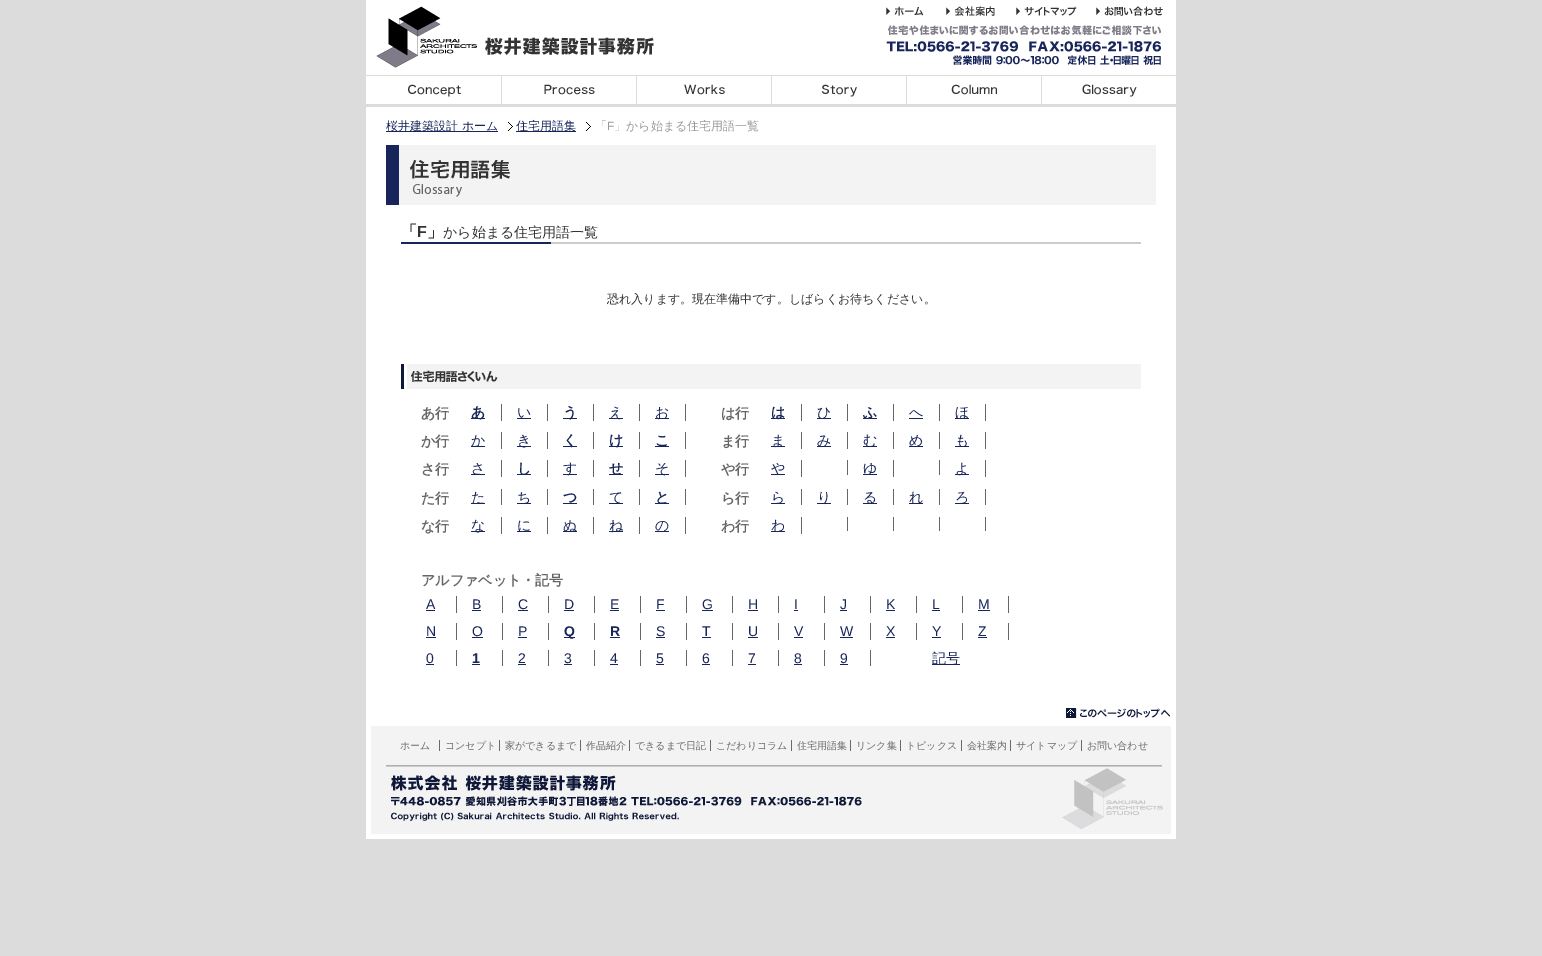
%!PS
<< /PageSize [1542 956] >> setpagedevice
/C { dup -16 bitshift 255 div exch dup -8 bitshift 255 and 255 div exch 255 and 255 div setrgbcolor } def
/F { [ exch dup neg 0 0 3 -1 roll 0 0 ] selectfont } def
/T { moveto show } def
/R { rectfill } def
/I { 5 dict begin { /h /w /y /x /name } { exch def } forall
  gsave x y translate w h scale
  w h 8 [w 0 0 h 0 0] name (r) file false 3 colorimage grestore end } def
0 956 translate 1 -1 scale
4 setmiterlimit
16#DCDCDC C
0 0 1542 956 R
16#FFFFFF C
366 0 810 764 R
(1.rgb) 376 6 278 62 I
(2.rgb) 886 6 37 10 I
(3.rgb) 946 6 49 10 I
(4.rgb) 1016 6 61 10 I
(5.rgb) 1096 6 67 10 I
(6.rgb) 888 25 273 10 I
(7.rgb) 886 41 275 11 I
(8.rgb) 953 55 208 10 I
(9.rgb) 366 75 135 32 I
(10.rgb) 501 75 135 32 I
(11.rgb) 636 75 135 32 I
(12.rgb) 771 75 135 32 I
(13.rgb) 906 75 135 32 I
(14.rgb) 1041 75 135 32 I
16#17255A C
386 131 112 1 R
/WenQuanYiZenHei-Medium 12 F
(桜井建築設計 ホーム) 386 130 T
(15.rgb) 508 122 5 9 I
516 131 60 1 R
(住宅用語集) 516 130 T
(15.rgb) 586 122 5 9 I
16#999999 C
(「) 595 130 T
/LiberationSans-Regular 12 F
(F) 607 130 T
/WenQuanYiZenHei-Medium 12 F
(」から始まる住宅用語一覧) 614 130 T
(16.rgb) 386 145 770 60 I
(17.rgb) 401 242 740 2 I
/WenQuanYiZenHei-Bold 16 F
16#333333 C
(「) 401 237 T
/LiberationSans-Bold 16 F
(F) 417 237 T
/WenQuanYiZenHei-Bold 16 F
(」) 427 237 T
/WenQuanYiZenHei-Medium 14 F
(から始まる住宅用語一覧) 443 237 T
/WenQuanYiZenHei-Medium 12 F
(恐れ入ります。現在準備中です。しばらくお待ちください。) 607 303 T
(18.rgb) 401 364 740 25 I
/WenQuanYiZenHei-Bold 14 F
16#666666 C
(あ行) 421 418 T
501 404 1 17 R
16#17255A C
471 418 14 1 R
(あ) 471 417 T
16#666666 C
547 404 1 17 R
/WenQuanYiZenHei-Medium 14 F
16#17255A C
(い) 517 417 T
517 418 14 1 R
16#666666 C
593 404 1 17 R
16#17255A C
563 418 14 1 R
/WenQuanYiZenHei-Bold 14 F
(う) 563 417 T
16#666666 C
639 404 1 17 R
16#17255A C
609 418 14 1 R
/WenQuanYiZenHei-Medium 14 F
(え) 609 417 T
16#666666 C
685 404 1 17 R
16#17255A C
655 418 14 1 R
(お) 655 417 T
/WenQuanYiZenHei-Bold 14 F
16#666666 C
(か行) 421 446 T
501 432 1 17 R
16#17255A C
471 446 14 1 R
/WenQuanYiZenHei-Medium 14 F
(か) 471 445 T
16#666666 C
547 432 1 17 R
16#17255A C
517 446 14 1 R
(き) 517 445 T
16#666666 C
593 432 1 17 R
16#17255A C
563 446 14 1 R
/WenQuanYiZenHei-Bold 14 F
(く) 563 445 T
16#666666 C
639 432 1 17 R
16#17255A C
609 446 14 1 R
(け) 609 445 T
16#666666 C
685 432 1 17 R
16#17255A C
655 446 14 1 R
(こ) 655 445 T
16#666666 C
(さ行) 421 474 T
501 460 1 17 R
16#17255A C
471 474 14 1 R
/WenQuanYiZenHei-Medium 14 F
(さ) 471 473 T
16#666666 C
547 460 1 17 R
16#17255A C
517 474 14 1 R
/WenQuanYiZenHei-Bold 14 F
(し) 517 473 T
16#666666 C
593 460 1 17 R
16#17255A C
563 474 14 1 R
/WenQuanYiZenHei-Medium 14 F
(す) 563 473 T
16#666666 C
639 460 1 17 R
16#17255A C
609 474 14 1 R
/WenQuanYiZenHei-Bold 14 F
(せ) 609 473 T
16#666666 C
685 460 1 17 R
16#17255A C
655 474 14 1 R
/WenQuanYiZenHei-Medium 14 F
(そ) 655 473 T
/WenQuanYiZenHei-Bold 14 F
16#666666 C
(た行) 421 503 T
501 489 1 16 R
16#17255A C
471 503 14 1 R
/WenQuanYiZenHei-Medium 14 F
(た) 471 502 T
16#666666 C
547 489 1 16 R
16#17255A C
517 503 14 1 R
(ち) 517 502 T
16#666666 C
593 489 1 16 R
/WenQuanYiZenHei-Bold 14 F
16#17255A C
(つ) 563 502 T
563 503 14 1 R
16#666666 C
639 489 1 16 R
16#17255A C
609 503 14 1 R
/WenQuanYiZenHei-Medium 14 F
(て) 609 502 T
16#666666 C
685 489 1 16 R
16#17255A C
655 503 14 1 R
/WenQuanYiZenHei-Bold 14 F
(と) 655 502 T
16#666666 C
(な行) 421 531 T
501 517 1 17 R
16#17255A C
471 531 14 1 R
/WenQuanYiZenHei-Medium 14 F
(な) 471 530 T
16#666666 C
547 517 1 17 R
16#17255A C
517 531 14 1 R
(に) 517 530 T
16#666666 C
593 517 1 17 R
16#17255A C
563 531 14 1 R
(ぬ) 563 530 T
16#666666 C
639 517 1 17 R
16#17255A C
609 531 14 1 R
(ね) 609 530 T
16#666666 C
685 517 1 17 R
16#17255A C
655 531 14 1 R
(の) 655 530 T
/WenQuanYiZenHei-Bold 14 F
16#666666 C
(は行) 721 418 T
801 404 1 17 R
16#17255A C
771 418 14 1 R
(は) 771 417 T
16#666666 C
847 404 1 17 R
16#17255A C
817 418 14 1 R
/WenQuanYiZenHei-Medium 14 F
(ひ) 817 417 T
16#666666 C
893 404 1 17 R
16#17255A C
863 418 14 1 R
/WenQuanYiZenHei-Bold 14 F
(ふ) 863 417 T
16#666666 C
939 404 1 17 R
/WenQuanYiZenHei-Medium 14 F
16#17255A C
(へ) 909 417 T
909 418 14 1 R
16#666666 C
985 404 1 17 R
16#17255A C
955 418 14 1 R
(ほ) 955 417 T
/WenQuanYiZenHei-Bold 14 F
16#666666 C
(ま行) 721 446 T
801 432 1 17 R
16#17255A C
771 446 14 1 R
/WenQuanYiZenHei-Medium 14 F
(ま) 771 445 T
16#666666 C
847 432 1 17 R
16#17255A C
817 446 14 1 R
(み) 817 445 T
16#666666 C
893 432 1 17 R
16#17255A C
863 446 14 1 R
(む) 863 445 T
16#666666 C
939 432 1 17 R
16#17255A C
909 446 14 1 R
(め) 909 445 T
16#666666 C
985 432 1 17 R
16#17255A C
955 446 14 1 R
(も) 955 445 T
/WenQuanYiZenHei-Bold 14 F
16#666666 C
(や行) 721 474 T
801 460 1 17 R
16#17255A C
771 474 14 1 R
/WenQuanYiZenHei-Medium 14 F
(や) 771 473 T
16#666666 C
847 460 1 15 R
893 460 1 17 R
16#17255A C
863 474 14 1 R
(ゆ) 863 473 T
16#666666 C
939 460 1 15 R
985 460 1 17 R
16#17255A C
955 474 14 1 R
(よ) 955 473 T
/WenQuanYiZenHei-Bold 14 F
16#666666 C
(ら行) 721 503 T
801 489 1 16 R
16#17255A C
771 503 14 1 R
/WenQuanYiZenHei-Medium 14 F
(ら) 771 502 T
16#666666 C
847 489 1 16 R
16#17255A C
817 503 14 1 R
(り) 817 502 T
16#666666 C
893 489 1 16 R
16#17255A C
863 503 14 1 R
(る) 863 502 T
16#666666 C
939 489 1 16 R
16#17255A C
909 503 14 1 R
(れ) 909 502 T
16#666666 C
985 489 1 16 R
16#17255A C
955 503 14 1 R
(ろ) 955 502 T
/WenQuanYiZenHei-Bold 14 F
16#666666 C
(わ行) 721 531 T
801 517 1 17 R
16#17255A C
771 531 14 1 R
/WenQuanYiZenHei-Medium 14 F
(わ) 771 530 T
16#666666 C
847 517 1 14 R
893 517 1 14 R
939 517 1 14 R
985 517 1 14 R
/WenQuanYiZenHei-Bold 14 F
(アルファベット・記号) 421 585 T
456 596 1 17 R
/LiberationSans-Regular 14 F
16#17255A C
(A) 426 609 T
426 610 9 1 R
16#666666 C
502 596 1 17 R
16#17255A C
(B) 472 609 T
472 610 9 1 R
16#666666 C
548 596 1 17 R
16#17255A C
(C) 518 609 T
518 610 10 1 R
16#666666 C
594 596 1 17 R
16#17255A C
(D) 564 609 T
564 610 10 1 R
16#666666 C
640 596 1 17 R
16#17255A C
(E) 610 609 T
610 610 9 1 R
16#666666 C
686 596 1 17 R
16#17255A C
(F) 656 609 T
656 610 9 1 R
16#666666 C
732 596 1 17 R
16#17255A C
(G) 702 609 T
702 610 11 1 R
16#666666 C
778 596 1 17 R
16#17255A C
(H) 748 609 T
748 610 10 1 R
16#666666 C
824 596 1 17 R
16#17255A C
(I) 794 609 T
794 610 4 1 R
16#666666 C
870 596 1 17 R
16#17255A C
(J) 840 609 T
840 610 7 1 R
16#666666 C
916 596 1 17 R
16#17255A C
(K) 886 609 T
886 610 9 1 R
16#666666 C
962 596 1 17 R
16#17255A C
(L) 932 609 T
932 610 8 1 R
16#666666 C
1008 596 1 17 R
16#17255A C
(M) 978 609 T
978 610 12 1 R
16#666666 C
456 623 1 17 R
16#17255A C
(N) 426 636 T
426 637 10 1 R
16#666666 C
502 623 1 17 R
16#17255A C
(O) 472 636 T
472 637 11 1 R
16#666666 C
548 623 1 17 R
16#17255A C
(P) 518 636 T
518 637 9 1 R
16#666666 C
594 623 1 17 R
16#17255A C
564 637 11 1 R
/LiberationSans-Bold 14 F
(Q) 564 636 T
16#666666 C
640 623 1 17 R
16#17255A C
(R) 610 636 T
610 637 10 1 R
16#666666 C
686 623 1 17 R
/LiberationSans-Regular 14 F
16#17255A C
(S) 656 636 T
656 637 9 1 R
16#666666 C
732 623 1 17 R
16#17255A C
(T) 702 636 T
702 637 9 1 R
16#666666 C
778 623 1 17 R
16#17255A C
(U) 748 636 T
748 637 10 1 R
16#666666 C
824 623 1 17 R
16#17255A C
(V) 794 636 T
794 637 9 1 R
16#666666 C
870 623 1 17 R
16#17255A C
(W) 840 636 T
840 637 13 1 R
16#666666 C
916 623 1 17 R
16#17255A C
(X) 886 636 T
886 637 9 1 R
16#666666 C
962 623 1 17 R
16#17255A C
(Y) 932 636 T
932 637 9 1 R
16#666666 C
1008 623 1 17 R
16#17255A C
(Z) 978 636 T
978 637 9 1 R
16#666666 C
456 650 1 16 R
16#17255A C
(0) 426 663 T
426 664 8 1 R
16#666666 C
502 650 1 16 R
/LiberationSans-Bold 14 F
16#17255A C
(1) 472 663 T
472 664 8 1 R
16#666666 C
548 650 1 16 R
/LiberationSans-Regular 14 F
16#17255A C
(2) 518 663 T
518 664 8 1 R
16#666666 C
594 650 1 16 R
16#17255A C
(3) 564 663 T
564 664 8 1 R
16#666666 C
640 650 1 16 R
16#17255A C
(4) 610 663 T
610 664 8 1 R
16#666666 C
686 650 1 16 R
16#17255A C
(5) 656 663 T
656 664 8 1 R
16#666666 C
732 650 1 16 R
16#17255A C
(6) 702 663 T
702 664 8 1 R
16#666666 C
778 650 1 16 R
16#17255A C
(7) 748 663 T
748 664 8 1 R
16#666666 C
824 650 1 16 R
16#17255A C
(8) 794 663 T
794 664 8 1 R
16#666666 C
870 650 1 16 R
16#17255A C
(9) 840 663 T
840 664 8 1 R
932 664 28 1 R
/WenQuanYiZenHei-Medium 14 F
(記号) 932 663 T
(19.rgb) 1066 708 104 10 I
16#F3F3F3 C
371 726 800 38 R
/WenQuanYiZenHei-Medium 10 F
16#696A6C C
(ホーム) 400 749 T
(コンセプト) 445 749 T
439 740 1 11 R
(家ができるまで) 505 749 T
499 740 1 11 R
(作品紹介) 586 749 T
580 740 1 11 R
(できるまで日記) 635 749 T
629 740 1 11 R
(こだわりコラム) 716 749 T
710 740 1 11 R
(住宅用語集) 797 749 T
791 740 1 11 R
(リンク集) 856 749 T
850 740 1 11 R
(トピックス) 906 749 T
900 740 1 11 R
(会社案内) 967 749 T
961 740 1 11 R
(サイトマップ) 1016 749 T
1010 740 1 11 R
(お問い合わせ) 1087 749 T
1081 740 1 11 R
(20.rgb) 366 764 810 75 I
showpage
